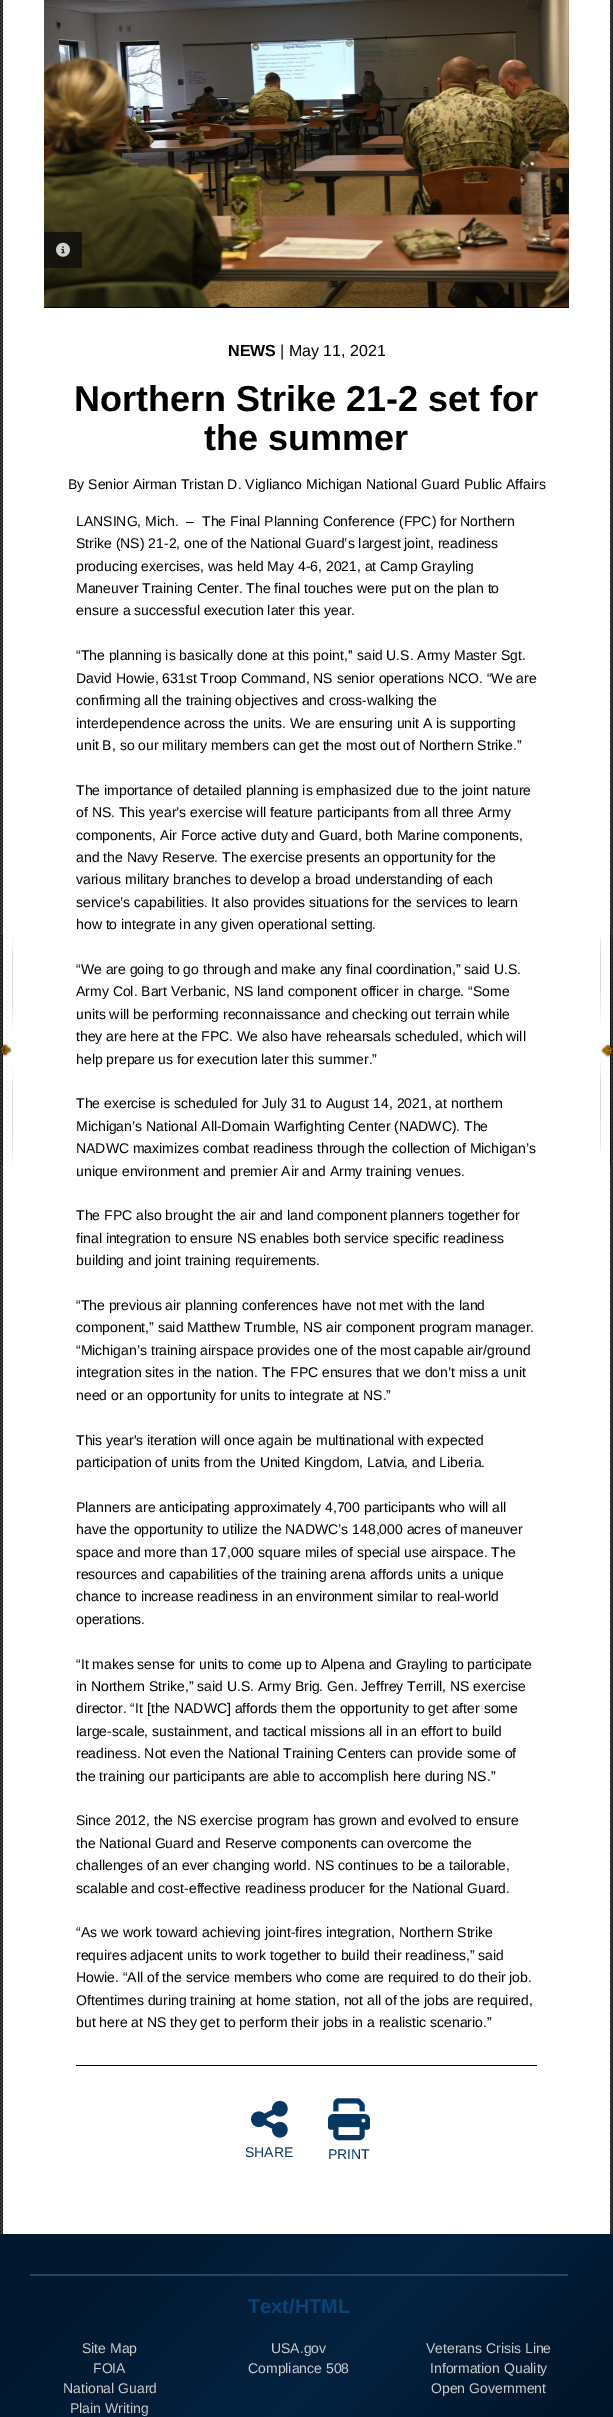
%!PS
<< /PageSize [613 2417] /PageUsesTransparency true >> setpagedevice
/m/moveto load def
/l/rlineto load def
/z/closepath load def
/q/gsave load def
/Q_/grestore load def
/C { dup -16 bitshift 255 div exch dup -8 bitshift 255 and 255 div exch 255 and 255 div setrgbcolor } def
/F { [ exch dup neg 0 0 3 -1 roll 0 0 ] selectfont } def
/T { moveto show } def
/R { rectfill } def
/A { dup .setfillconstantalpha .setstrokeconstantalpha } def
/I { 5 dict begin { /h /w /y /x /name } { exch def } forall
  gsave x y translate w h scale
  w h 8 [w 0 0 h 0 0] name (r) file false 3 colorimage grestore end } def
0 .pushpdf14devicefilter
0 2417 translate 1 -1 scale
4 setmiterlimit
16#FFFFFF C
0 0 613 2417 R
(1.rgb) 0 0 613 2234 I
3 0 607 2234 R
(2.rgb) 0 935 613 230 I
16#000000 C
44 0 525 308 R
(4.rgb) 568 0 1 307 I
(3.rgb) 44 0 525 307 I
0.8 A
16#0C0C0D C
44 232 38 36 R
1 A
(5.rgb) 56 242 14 15 I
/LiberationSans-Bold 16 F
16#000000 C
(NEWS) 228 356 T
/LiberationSans-Regular 16 F
(| May 11, 2021) 280 356 T
/LiberationSans-Bold 36 F
(Northern Strike 21-2 set for) 74 411 T
(the summer) 204 450 T
/LiberationSans-Regular 14 F
(By Senior Airman Tristan D. Viglianco Michigan National Guard Public Affairs) 68 489 T
76 2065 461 1 R
(LANSING, Mich.  –) 76 526 T
(The Final Planning Conference \(FPC\) for Northern) 202 526 T
(Strike \(NS\) 21-2, one of the National Guard’s largest joint, readiness) 76 548 T
(producing exercises, was held May 4-6, 2021, at Camp Grayling) 76 571 T
(Maneuver Training Center. The final touches were put on the plan to) 76 593 T
(ensure a successful execution later this year.) 76 615 T
(“The planning is basically done at this point,'' said U.S. Army Master Sgt.) 76 660 T
(David Howie, 631st Troop Command, NS senior operations NCO. “We are) 76 683 T
(confirming all the training objectives and cross-walking the) 76 705 T
(interdependence across the units. We are ensuring unit A is supporting) 76 728 T
(unit B, so our military members can get the most out of Northern Strike.”) 76 750 T
(The importance of detailed planning is emphasized due to the joint nature) 76 795 T
(of NS. This year’s exercise will feature participants from all three Army) 76 817 T
(components, Air Force active duty and Guard, both Marine components,) 76 840 T
(and the Navy Reserve. The exercise presents an opportunity for the) 76 862 T
(various military branches to develop a broad understanding of each) 76 884 T
(service’s capabilities. It also provides situations for the services to learn) 76 907 T
(how to integrate in any given operational setting.) 76 929 T
(“We are going to go through and make any final coordination,” said U.S.) 76 974 T
(Army Col. Bart Verbanic, NS land component officer in charge. “Some) 76 996 T
(units will be performing reconnaissance and checking out terrain while) 76 1019 T
(they are here at the FPC. We also have rehearsals scheduled, which will) 76 1041 T
(help prepare us for execution later this summer.”) 76 1064 T
(The exercise is scheduled for July 31 to August 14, 2021, at northern) 76 1108 T
(Michigan’s National All-Domain Warfighting Center \(NADWC\). The) 76 1131 T
(NADWC maximizes combat readiness through the collection of Michigan’s) 76 1153 T
(unique environment and premier Air and Army training venues.) 76 1176 T
(The FPC also brought the air and land component planners together for) 76 1220 T
(final integration to ensure NS enables both service specific readiness) 76 1243 T
(building and joint training requirements.) 76 1265 T
(“The previous air planning conferences have not met with the land) 76 1310 T
(component,” said Matthew Trumble, NS air component program manager.) 76 1332 T
(“Michigan’s training airspace provides one of the most capable air/ground) 76 1355 T
(integration sites in the nation. The FPC ensures that we don’t miss a unit) 76 1377 T
(need or an opportunity for units to integrate at NS.”) 76 1400 T
(This year's iteration will once again be multinational with expected) 76 1445 T
(participation of units from the United Kingdom, Latvia, and Liberia.) 76 1467 T
(Planners are anticipating approximately 4,700 participants who will all) 76 1512 T
(have the opportunity to utilize the NADWC’s 148,000 acres of maneuver) 76 1534 T
(space and more than 17,000 square miles of special use airspace. The) 76 1557 T
(resources and capabilities of the training arena affords units a unique) 76 1579 T
(chance to increase readiness in an environment similar to real-world) 76 1601 T
(operations.) 76 1624 T
(“It makes sense for units to come up to Alpena and Grayling to participate) 76 1669 T
(in Northern Strike,” said U.S. Army Brig. Gen. Jeffrey Terrill, NS exercise) 76 1691 T
(director. “It [the NADWC] affords them the opportunity to get after some) 76 1713 T
(large-scale, sustainment, and tactical missions all in an effort to build) 76 1736 T
(readiness. Not even the National Training Centers can provide some of) 76 1758 T
(the training our participants are able to accomplish here during NS.”) 76 1781 T
(Since 2012, the NS exercise program has grown and evolved to ensure) 76 1825 T
(the National Guard and Reserve components can overcome the) 76 1848 T
(challenges of an ever changing world. NS continues to be a tailorable,) 76 1870 T
(scalable and cost-effective readiness producer for the National Guard.) 76 1893 T
(“As we work toward achieving joint-fires integration, Northern Strike) 76 1937 T
(requires adjacent units to work together to build their readiness,” said) 76 1960 T
(Howie. “All of the service members who come are required to do their job.) 76 1982 T
(Oftentimes during training at home station, not all of the jobs are required,) 76 2005 T
(but here at NS they get to perform their jobs in a realistic scenario.”) 76 2027 T
(6.rgb) 251 2100 37 38 I
16#073763 C
(SHARE) 245 2157 T
(7.rgb) 328 2098 42 43 I
(PRINT) 328 2159 T
q 0 2234 m 613 0 l 0 183 l -613 0 l z clip newpath
<< /ShadingType 2 /ColorSpace /DeviceRGB /Coords [35 2199 578 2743] /Extend [true true] /Function << /FunctionType 3 /Domain [0 1] /Functions [<< /FunctionType 2 /Domain [0 1] /C0 [.004 .098 .188] /C1 [.004 .098 .188] /N 1 >> << /FunctionType 2 /Domain [0 1] /C0 [.004 .098 .188] /C1 [.012 .133 .251] /N 1 >> << /FunctionType 2 /Domain [0 1] /C0 [.012 .133 .251] /C1 [.004 .067 .133] /N 1 >> << /FunctionType 2 /Domain [0 1] /C0 [.004 .067 .133] /C1 [0 .043 .086] /N 1 >>] /Bounds [.13 .43 .79] /Encode [0 1 0 1 0 1 0 1] >> >> shfill Q_
16#254267 C
30 2274 538 2 R
/LiberationSans-Bold 20 F
16#084476 C
(Text/HTML) 248 2313 T
/LiberationSans-Regular 14 F
16#CCCCCC C
(Site Map) 82 2353 T
(FOIA) 93 2373 T
(National Guard) 63 2393 T
(Plain Writing) 70 2413 T
(USA.gov) 271 2353 T
(Compliance 508) 248 2373 T
(Veterans Crisis Line) 426 2353 T
(Information Quality) 430 2373 T
(Open Government) 431 2393 T
.poppdf14devicefilter showpage
